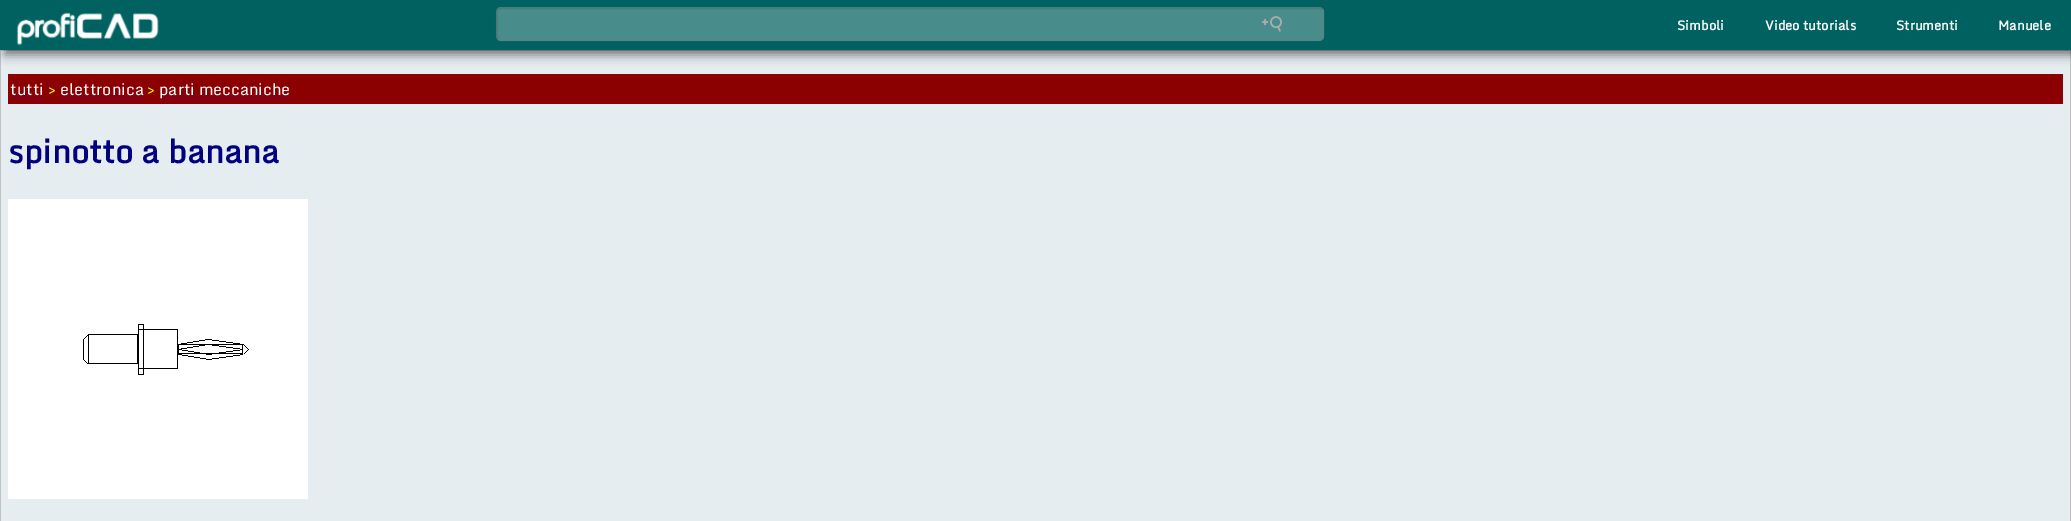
%!PS
<< /PageSize [2071 521] /PageUsesTransparency true >> setpagedevice
/m/moveto load def
/l/rlineto load def
/c/rcurveto load def
/f/fill load def
/s/stroke load def
/w/setlinewidth load def
/C { dup -16 bitshift 255 div exch dup -8 bitshift 255 and 255 div exch 255 and 255 div setrgbcolor } def
/F { [ exch dup neg 0 0 3 -1 roll 0 0 ] selectfont } def
/T { moveto show } def
/R { rectfill } def
/A { dup .setfillconstantalpha .setstrokeconstantalpha } def
/Q { 5 dict begin { /r /h /w /y /x } { exch def } forall
  x r add y moveto x w add y 2 copy h add r arct x w add y h add x 1 index r arct
  x y h add x y r arct x y 2 copy exch w add exch r arct closepath end } def
/S { 12 dict begin { /a /b /q /h /w /y /x } { exch def } forall gsave /was 0 def
  9 -2 -9 { dup b mul 4 div /e exch def 1 sub .425 mul 2.718 exch exp 1 add a .99 .min exch div /now exch def
    1 1 now sub 1 was sub div sub A /was now def
    w h .min e 2 mul add 0 gt { x e sub y e sub w e 2 mul add h e 2 mul add
      q e add b .6 mul add w h .min 2 div e add .min 0 .max Q fill } if } for grestore end } def
/I { 5 dict begin { /h /w /y /x /name } { exch def } forall
  gsave x y translate w h scale
  w h 8 [w 0 0 h 0 0] name (r) file false 3 colorimage grestore end } def
0 .pushpdf14devicefilter
0 521 translate 1 -1 scale
4 setmiterlimit
16#FFFFFF C
0 0 2071 521 R
16#C0C0C0 C
.5 50.5 2070 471 rectstroke
16#E5EDF0 C
1 51 2069 470 R
16#000000 C
5 5 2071 50 0 5 .5 S
16#006161 C
0 0 2071 50 R
(1.rgb) 16 12 143 34 I
16#488C8C C
496 7 828 34 5 Q f
(2.rgb) 1262 16 20 16 I
0.3 A
16#767676 C
2 w
1322 9 m 2.5 2.5 1 12 1 15 c 0 3 1.5 12.5 -1 15 c -3 1 l -819 0 l -2 -1 l s
16#4F4F4F C
498 39 m -2.5 -2.5 -1 -12 -1 -15 c 0 -3 -1.5 -12.5 1 -15 c 3 -1 l 819 0 l 2 1 l s
/Monda-Bold 13 F
1 A
16#FFFFFF C
(Simboli) 1677 30 T
(Video tutorials) 1765 30 T
(Strumenti) 1896 30 T
(Manuele) 1998 30 T
16#8B0000 C
8 74 2055 30 R
16#87000F C
10 94 34 8 R
/Monda-Regular 16 F
16#FFFFFF C
(tutti) 10 95 T
16#FFFF00 C
(>) 48 95 T
16#87000F C
60 94 83 8 R
16#FFFFFF C
(elettronica) 60 95 T
16#FFFF00 C
(>) 147 95 T
16#87000F C
159 94 131 8 R
16#FFFFFF C
(parti meccaniche) 159 95 T
/Monda-Bold 32 F
16#000080 C
(spinotto a banana) 8 163 T
(3.rgb) 8 199 300 300 I
.poppdf14devicefilter showpage
